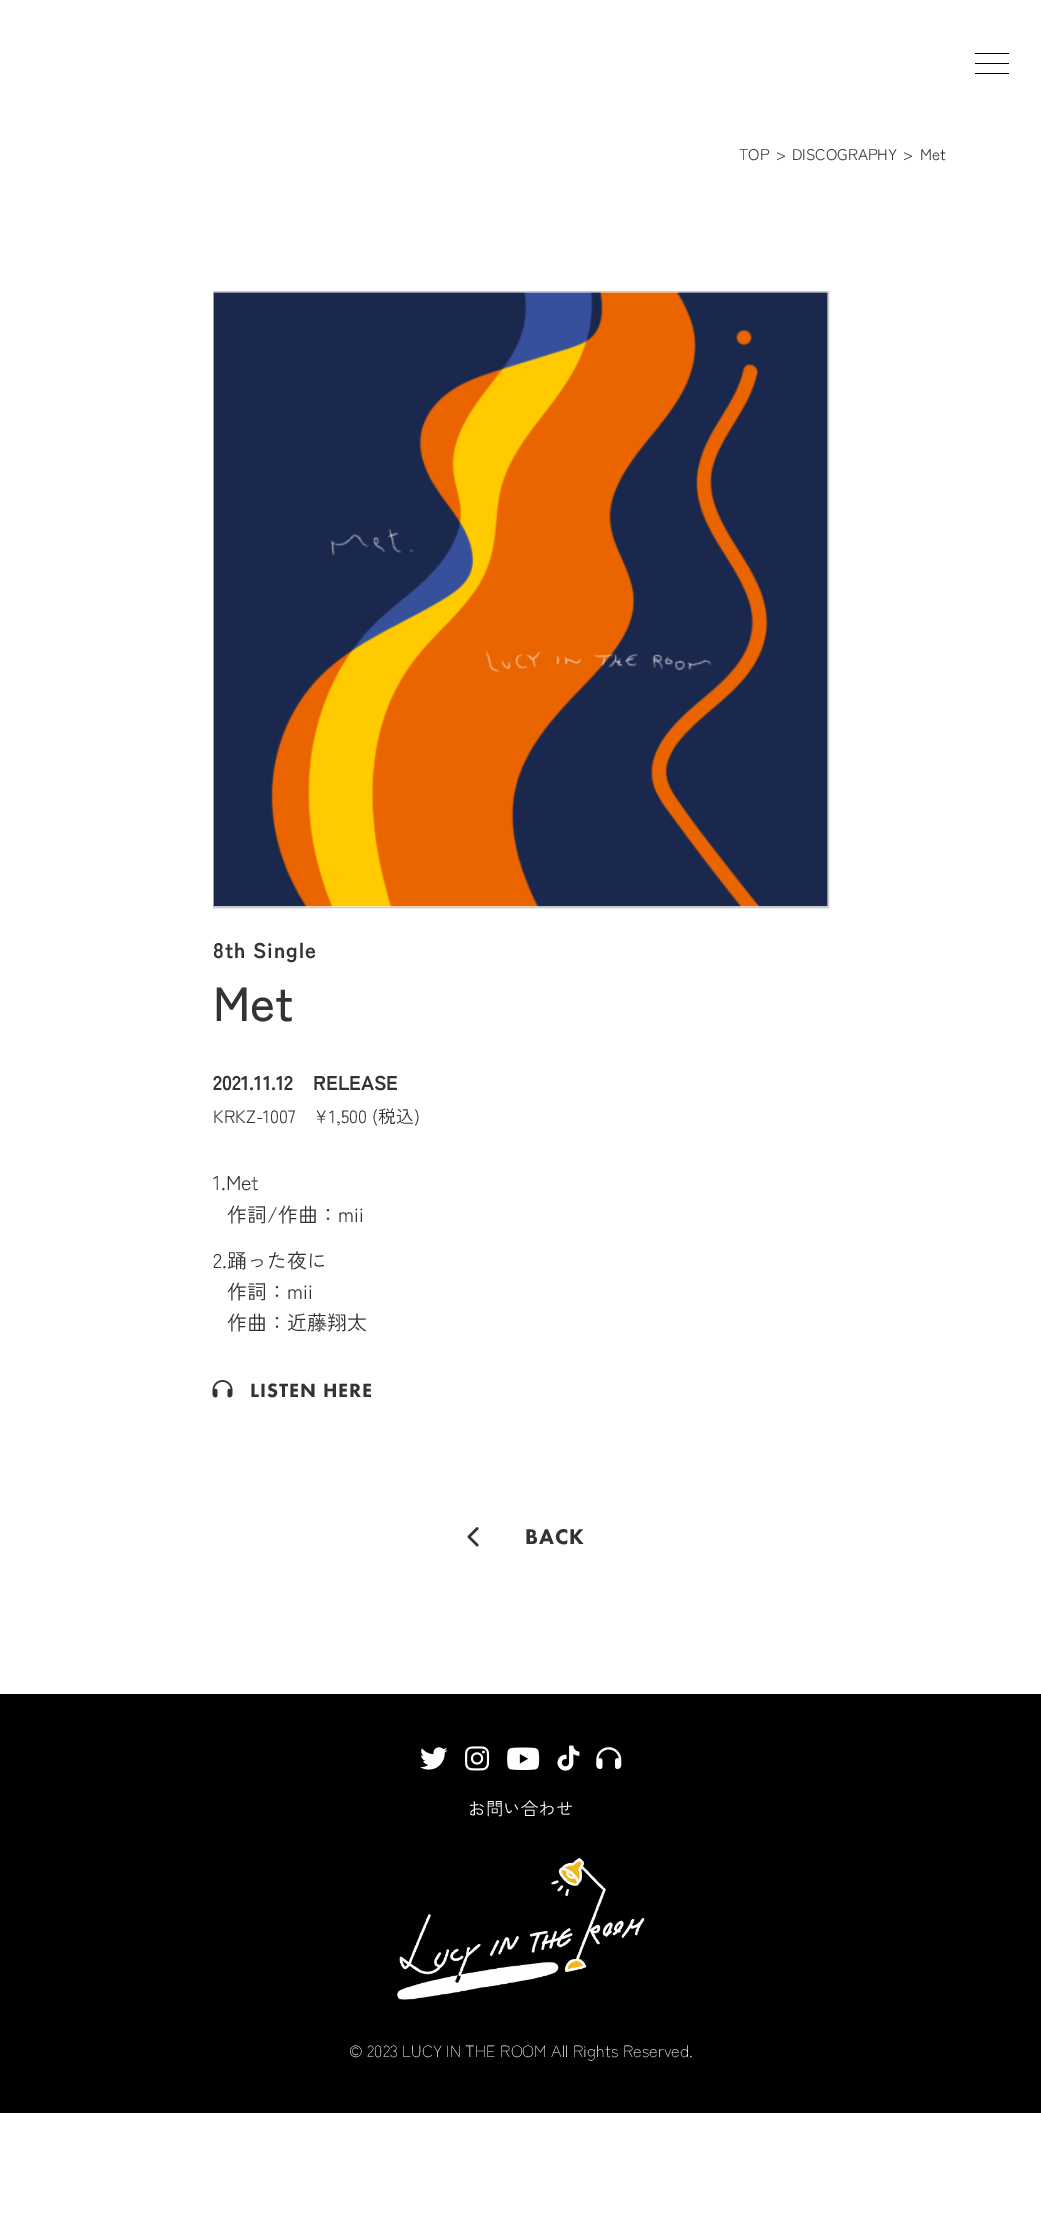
%!PS
<< /PageSize [1041 2231] >> setpagedevice
/m/moveto load def
/C { dup -16 bitshift 255 div exch dup -8 bitshift 255 and 255 div exch 255 and 255 div setrgbcolor } def
/F { [ exch dup neg 0 0 3 -1 roll 0 0 ] selectfont } def
/T { moveto show } def
/R { rectfill } def
/I { 5 dict begin { /h /w /y /x /name } { exch def } forall
  gsave x y translate w h scale
  w h 8 [w 0 0 h 0 0] name (r) file false 3 colorimage grestore end } def
0 2231 translate 1 -1 scale
4 setmiterlimit
16#FFFFFF C
0 0 1041 2231 R
16#000000 C
975 63 34 1 R
975 53 34 1 R
975 73 34 1 R
/ZenKakuGothicNew-Regular 15.5 F
16#333333 C
(TOP) 739 160 T
(>) 776 160 T
(DISCOGRAPHY) 792 160 T
(>) 903 160 T
(Met) 920 160 T
16#CCCCCC C
213.5 291.5 615 616 rectstroke
(1.rgb) 213 292 615 615 I
/ZenKakuGothicNew-Bold 21.25 F
16#333333 C
213 958 m 1 0 (8th Single) ashow
/ZenKakuGothicNew-Medium 48 F
(Met) 213 1021 T
/ZenKakuGothicNew-Bold 20 F
(2021.11.12　RELEASE) 213 1090 T
/ZenKakuGothicNew-Regular 17.75 F
(KRKZ-1007) 213 1123 T
(¥1,500 \(税込\)) 313 1123 T
/ZenKakuGothicNew-Regular 20 F
(1.Met) 213 1190 T
(作詞/作曲：mii) 227 1222 T
(2.踊った夜に) 213 1268 T
(作詞：mii) 227 1299 T
(作曲：近藤翔太) 227 1330 T
(2.rgb) 212 1380 21 18 I
/FuturaPT-Black 20 F
250 1397 m 1 0 (LISTEN HERE) ashow
(3.rgb) 467 1527 12 20 I
/FuturaPT-Black 22 F
525 1544 m 1 0 (BACK) ashow
16#000000 C
0 1694 1041 419 R
(4.rgb) 420 1747 28 23 I
(5.rgb) 465 1746 25 25 I
(6.rgb) 507 1747 33 23 I
(7.rgb) 557 1745 23 26 I
(8.rgb) 596 1747 26 22 I
/ZenKakuGothicNew-Regular 17.5 F
16#FFFFFF C
(お問い合わせ) 468 1815 T
(9.rgb) 397 1857 248 143 I
/ZenKakuGothicNew-Light 16.25 F
(© 2023 LUCY IN THE ROOM All Rights Reserved.) 349 2057 T
showpage
